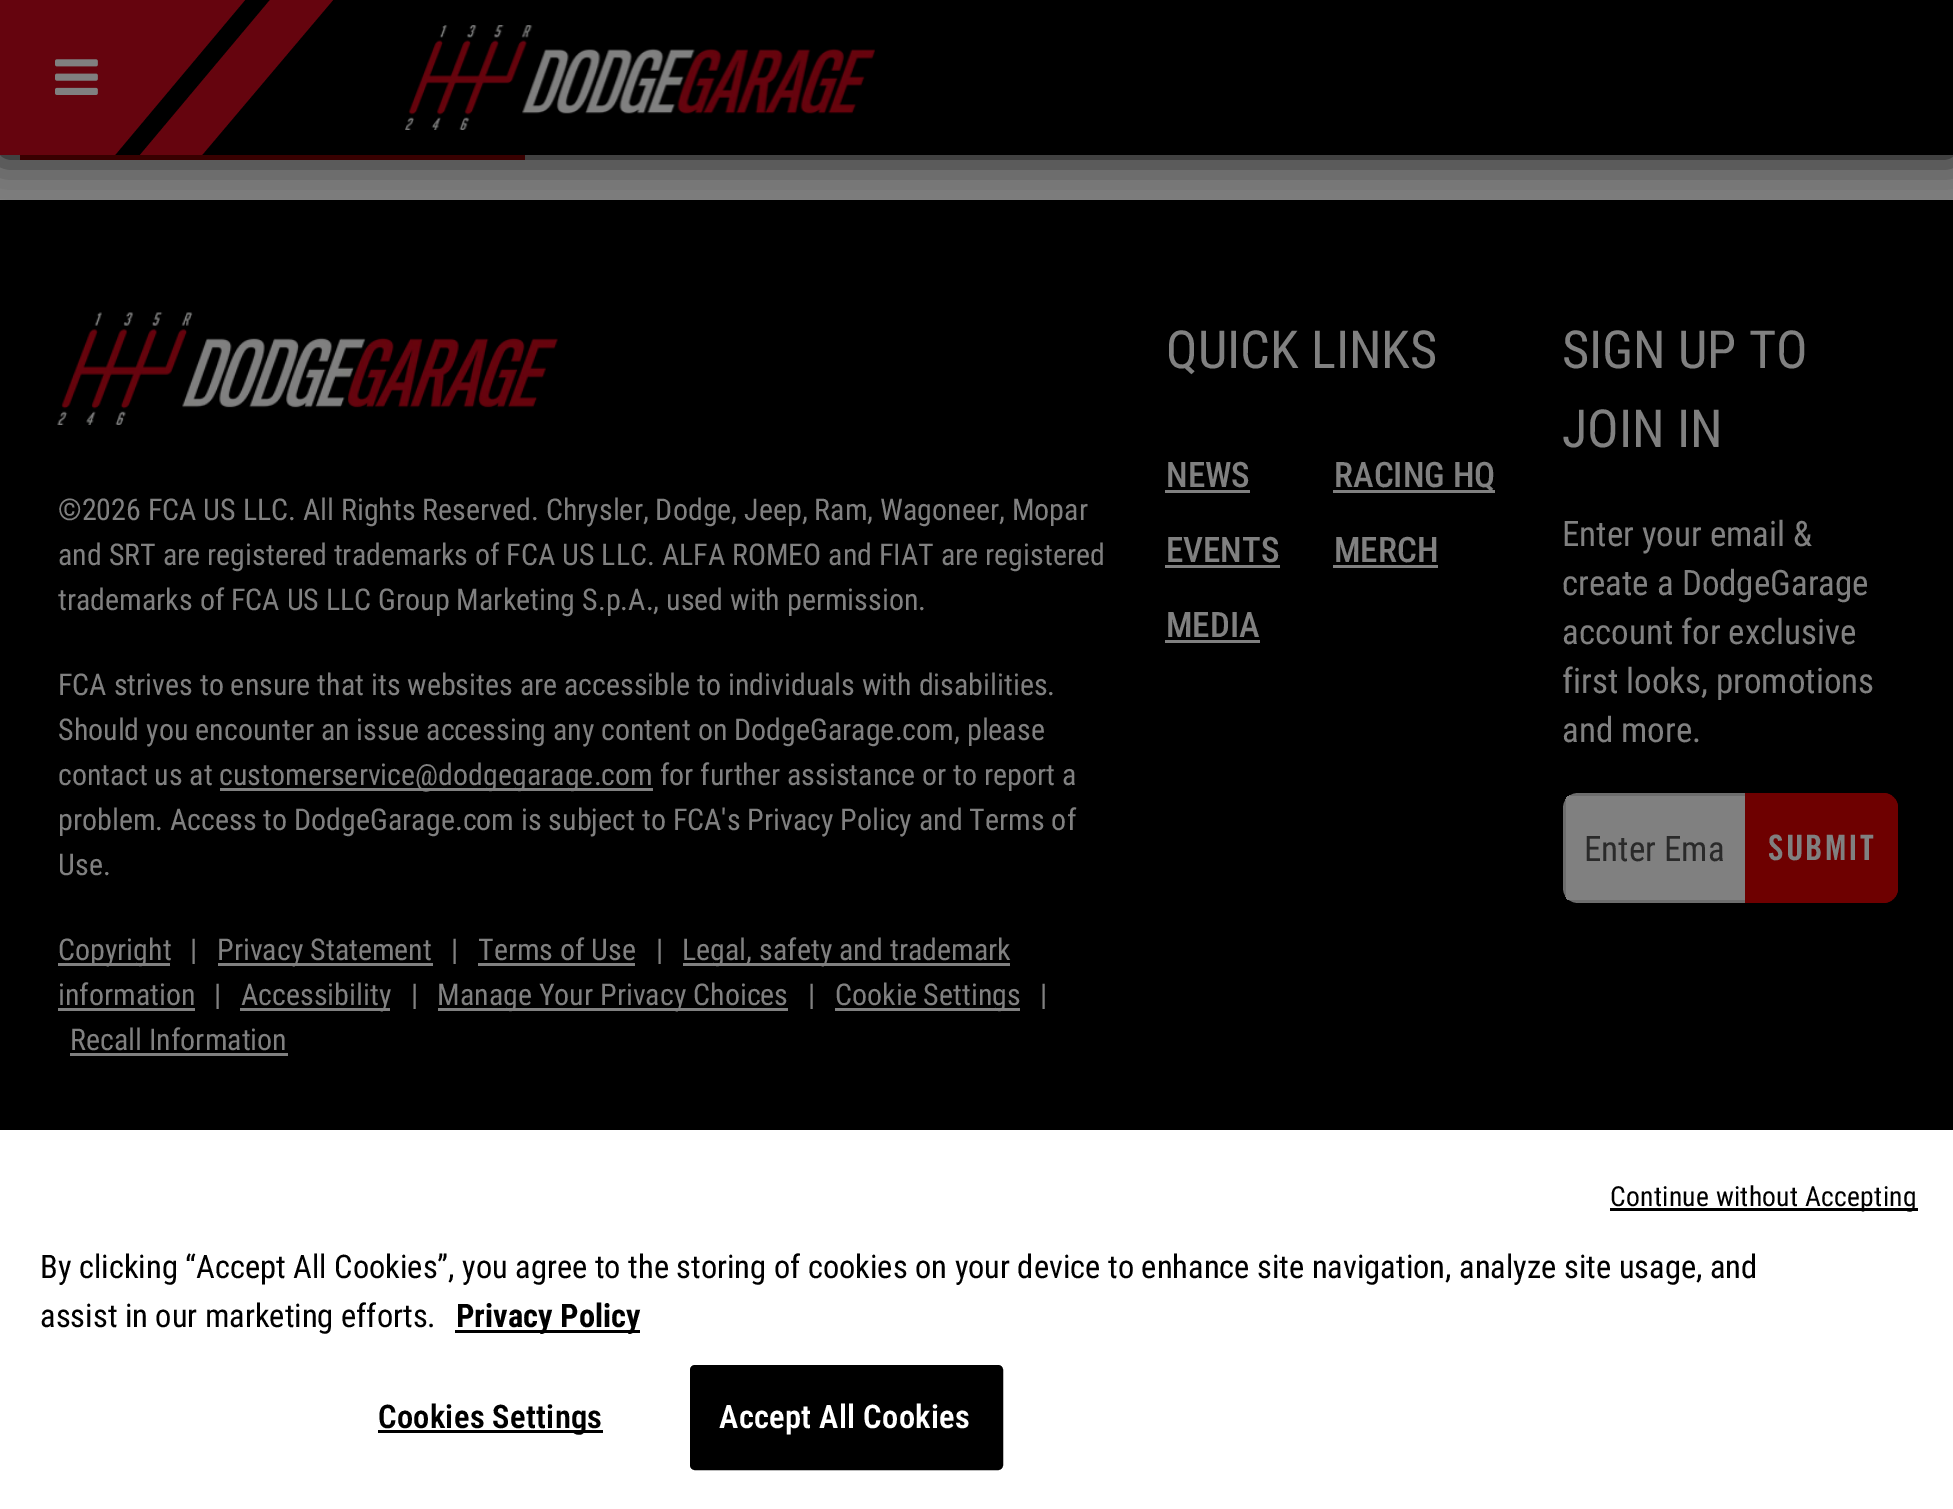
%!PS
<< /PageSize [1953 1509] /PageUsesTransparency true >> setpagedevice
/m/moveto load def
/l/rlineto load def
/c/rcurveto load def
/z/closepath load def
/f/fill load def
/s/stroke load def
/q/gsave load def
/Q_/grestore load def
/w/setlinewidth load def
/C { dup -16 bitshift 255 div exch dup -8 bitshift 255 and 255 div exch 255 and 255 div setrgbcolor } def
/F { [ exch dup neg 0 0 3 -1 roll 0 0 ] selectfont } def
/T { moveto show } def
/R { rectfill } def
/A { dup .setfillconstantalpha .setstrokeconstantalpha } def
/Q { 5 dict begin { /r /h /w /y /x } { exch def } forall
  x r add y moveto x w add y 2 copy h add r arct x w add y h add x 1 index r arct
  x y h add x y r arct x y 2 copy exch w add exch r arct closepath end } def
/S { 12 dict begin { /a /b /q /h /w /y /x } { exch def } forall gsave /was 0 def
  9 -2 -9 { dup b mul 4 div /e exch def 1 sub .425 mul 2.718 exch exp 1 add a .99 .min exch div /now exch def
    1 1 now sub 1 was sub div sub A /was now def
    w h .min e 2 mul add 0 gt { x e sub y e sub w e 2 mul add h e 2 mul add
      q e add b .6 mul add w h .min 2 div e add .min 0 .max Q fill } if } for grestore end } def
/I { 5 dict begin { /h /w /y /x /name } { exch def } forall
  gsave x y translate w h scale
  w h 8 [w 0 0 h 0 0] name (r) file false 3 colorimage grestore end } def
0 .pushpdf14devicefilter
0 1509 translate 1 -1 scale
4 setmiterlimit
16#808080 C
0 0 1953 1509 R
16#6E0000 C
20 155 505 5 R
16#000000 C
0 200 1953 930 R
0 0 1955 155 0 20 1 S
115 0 1838 155 R
16#65040E C
-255 0 m 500 0 l -130 155 l -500 0 l z f
(1.rgb) 55 59 43 36 I
270 0 m 63 0 l -131 155 l -62 0 l z f
(2.rgb) 405 25 470 105 I
(3.rgb) 57 312 501 113 I
/RobotoCondensed-Regular 30 F
16#808080 C
(©2026 FCA US LLC. All Rights Reserved. Chrysler, Dodge, Jeep, Ram, Wagoneer, Mopar) 58 520 T
(and SRT are registered trademarks of FCA US LLC. ALFA ROMEO and FIAT are registered) 58 565 T
(trademarks of FCA US LLC Group Marketing S.p.A., used with permission.) 58 610 T
(FCA strives to ensure that its websites are accessible to individuals with disabilities.) 58 695 T
(Should you encounter an issue accessing any content on DodgeGarage.com, please) 58 740 T
(contact us at) 58 785 T
220 788 433 3 R
(customerservice@dodgegarage.com for further assistance or to report a) 219 785 T
(problem. Access to DodgeGarage.com is subject to FCA's Privacy Policy and Terms of) 58 830 T
(Use.) 58 875 T
58 963 112 3 R
(Copyright) 58 960 T
(|) 190 960 T
218 963 215 3 R
(Privacy Statement) 217 960 T
(|) 451 960 T
(Terms of Use) 478 960 T
478 963 157 3 R
(|) 656 960 T
683 963 327 3 R
(Legal, safety and trademark) 682 960 T
(information) 58 1005 T
58 1008 137 3 R
(|) 214 1005 T
240 1008 150 3 R
(Accessibility) 241 1005 T
(|) 411 1005 T
438 1008 350 3 R
(Manage Your Privacy Choices) 437 1005 T
(|) 808 1005 T
835 1008 185 3 R
(Cookie Settings) 835 1005 T
(|) 1040 1005 T
(Recall Information) 70 1050 T
70 1053 218 3 R
/RobotoCondensed-Regular 52.5 F
(QUICK LINKS) 1166 368 T
/RobotoCondensed-Medium 35 F
(NEWS) 1166 487 T
1165 490 85 3 R
1333 490 162 3 R
(RACING HQ) 1334 487 T
(EVENTS) 1166 562 T
1165 565 115 3 R
(MERCH) 1334 562 T
1333 565 105 3 R
(MEDIA) 1166 637 T
1165 640 95 3 R
/RobotoCondensed-Regular 52.5 F
(SIGN UP TO) 1562 368 T
(JOIN IN) 1562 447 T
/RobotoCondensed-Regular 35 F
(Enter your email &) 1562 546 T
(create a DodgeGarage) 1562 595 T
(account for exclusive) 1562 644 T
(first looks, promotions) 1562 693 T
(and more.) 1562 742 T
q
1563 793 335 110 15 Q clip newpath
1565 795 180 105 R
Q_
16#6D6D6D C
1563 808 m 0 80 l 0 3 1 6 3 9 c 0 -98 l -2 3 -3 6 -3 9 c z 1578 793 m -3 0 -6 1 -9 3 c 176 0 l 0 104 l -176 0 l 3 2 6 3 9 3 c 170 0 l 0 -110 l z eofill
16#2A2A2A C
(Enter Ema) 1584 861 T
16#6E0000 C
1745 793 m 138 0 l 8.5 0 15 6.5 15 15 c 0 80 l 0 8.5 -6.5 15 -15 15 c -138 0 l z f
1745 793 m 0 110 l 138 0 l 3 0 6 -1 9 -3 c -144 0 l 0 -104 l 144 0 l -3 -2 -6 -3 -9 -3 c z 1898 808 m 0 -3 -1 -6 -3 -9 c 0 98 l 2 -3 3 -6 3 -9 c z eofill
/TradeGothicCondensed-Bold 35 F
16#808080 C
1768 860 m 2 0 (SUBMIT) ashow
16#FFFFFF C
0 1130 1953 379 R
16#000000 C
1610 1208 308 3 R
/RobotoCondensed-Regular 27.6 F
1610 1206 m .25 0 (Continue without Accepting) ashow
/RobotoCondensed-Regular 32.52 F
(By clicking “Accept All Cookies”, you agree to the storing of cookies on your device to enhance site navigation, analyze site usage, and) 40 1278 T
(assist in our marketing efforts.) 40 1327 T
455 1330 185 3 R
/RobotoCondensed-Bold 32.52 F
(Privacy Policy) 456 1327 T
378 1430 225 3 R
/RobotoCondensed-SemiBold 32.52 F
378 1428 m .3 0 (Cookies Settings) ashow
691.5 1366.5 310 102 3.5 Q q f Q_
3 w
s
16#FFFFFF C
719 1428 m .3 0 (Accept All Cookies) ashow
.poppdf14devicefilter showpage
